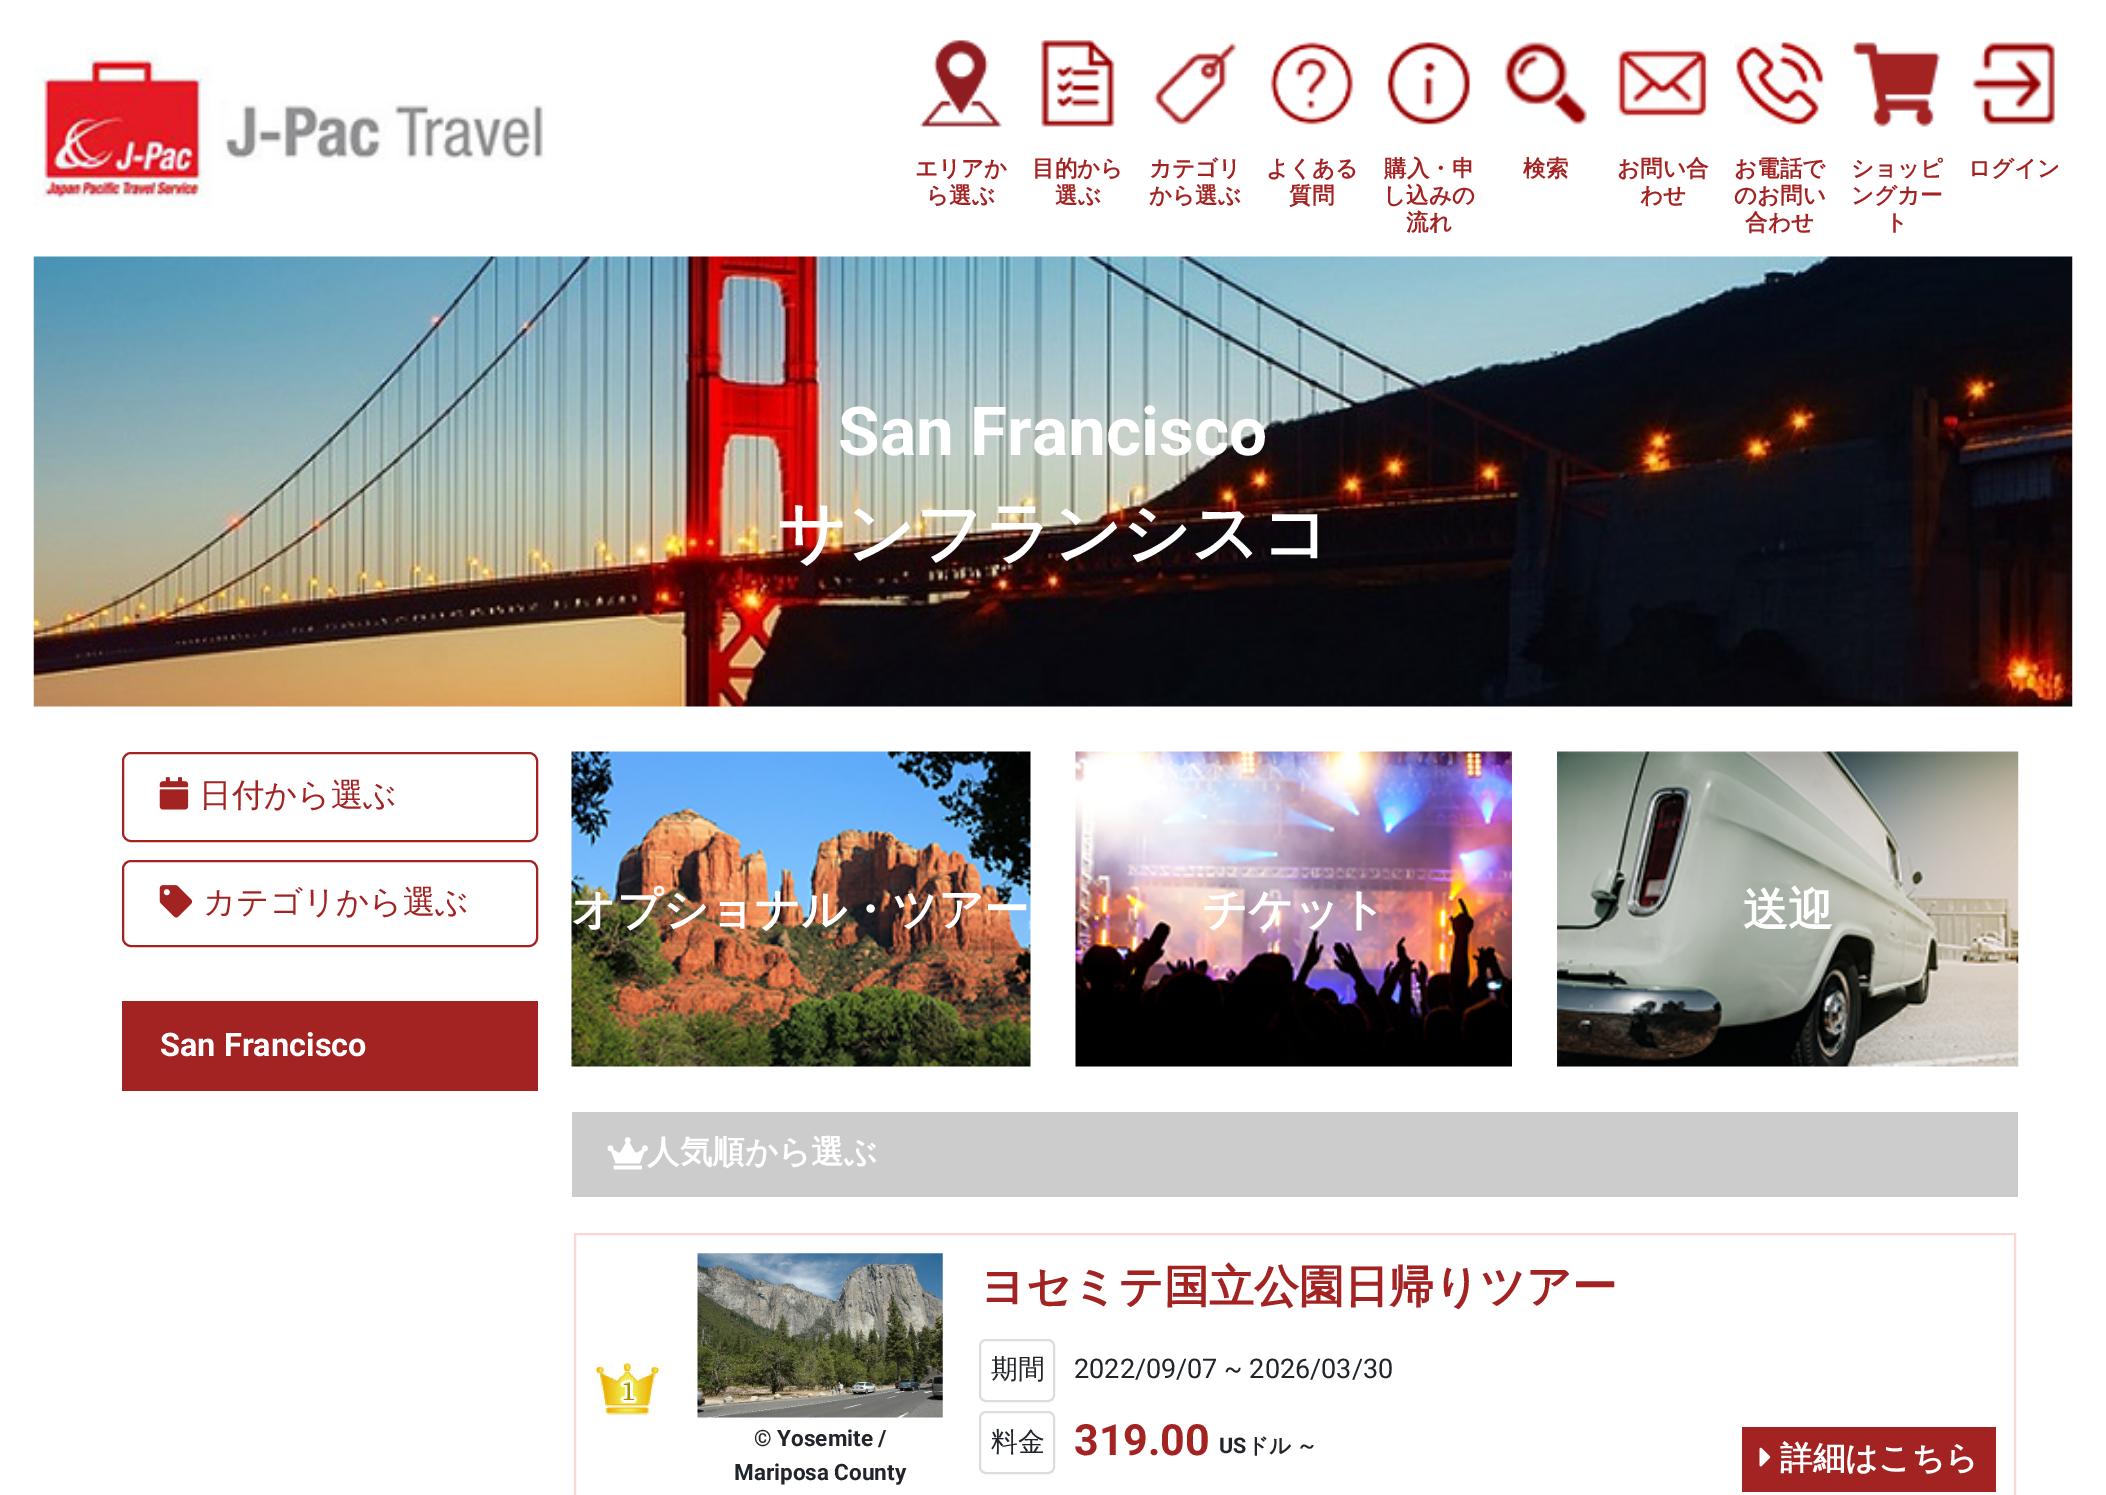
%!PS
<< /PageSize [2106 1495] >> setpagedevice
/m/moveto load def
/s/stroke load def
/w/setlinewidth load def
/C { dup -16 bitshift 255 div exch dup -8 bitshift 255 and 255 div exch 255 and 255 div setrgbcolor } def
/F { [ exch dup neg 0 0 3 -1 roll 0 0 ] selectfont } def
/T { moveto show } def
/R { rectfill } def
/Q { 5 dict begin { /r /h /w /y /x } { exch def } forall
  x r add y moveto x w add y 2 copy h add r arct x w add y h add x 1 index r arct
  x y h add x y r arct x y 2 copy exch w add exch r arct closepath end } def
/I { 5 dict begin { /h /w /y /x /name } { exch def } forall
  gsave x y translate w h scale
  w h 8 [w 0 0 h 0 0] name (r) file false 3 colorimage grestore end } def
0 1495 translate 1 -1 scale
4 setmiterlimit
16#FFFFFF C
0 0 2106 1495 R
(1.rgb) 34 49 178 158 I
(2.rgb) 220 99 326 63 I
(3.rgb) 919 40 83 87 I
/WenQuanYiZenHei-Bold 22.5 F
16#A32222 C
(エリアか) 915 176 T
(ら選ぶ) 926 203 T
(4.rgb) 1041 40 74 87 I
(目的から) 1032 176 T
(選ぶ) 1055 203 T
(5.rgb) 1153 42 84 83 I
(カテゴリ) 1149 176 T
(から選ぶ) 1149 203 T
(6.rgb) 1270 42 84 83 I
(よくある) 1266 176 T
(質問) 1289 203 T
(7.rgb) 1387 42 84 83 I
(購入・申) 1384 176 T
(し込みの) 1383 203 T
(流れ) 1406 230 T
(8.rgb) 1504 42 83 83 I
(検索) 1523 176 T
(9.rgb) 1617 49 91 69 I
(お問い合) 1617 176 T
(わせ) 1640 203 T
(10.rgb) 1735 42 90 85 I
(お電話で) 1734 176 T
(のお問い) 1734 203 T
(合わせ) 1745 230 T
(11.rgb) 1853 42 88 85 I
(ショッピ) 1851 176 T
(ングカー) 1851 203 T
(ト) 1885 230 T
(12.rgb) 1972 42 83 83 I
(ログイン) 1968 176 T
(13.rgb) 33 256 2040 451 I
/Roboto-Bold 67.5 F
16#FFFFFF C
(San Francisco) 838 455 T
/WenQuanYiZenHei-Bold 67.5 F
(サンフランシスコ) 777 556 T
16#A32222 C
2 w
123 753 414 88 8 Q s
(14.rgb) 159 777 30 33 I
/WenQuanYiZenHei-Medium 32.5 F
(日付から選ぶ) 199 806 T
123 861 414 85 8 Q s
(15.rgb) 159 885 34 33 I
(カテゴリから選ぶ) 203 913 T
122 1001 416 90 R
/Roboto-Bold 32.5 F
16#FFFFFF C
(San Francisco) 160 1056 T
(16.rgb) 571 751 460 316 I
/WenQuanYiZenHei-Bold 45 F
(オプショナル・ツアー) 571 925 T
(17.rgb) 1075 751 437 316 I
(チケット) 1202 925 T
(18.rgb) 1557 751 462 316 I
(送迎) 1743 925 T
16#CCCCCC C
572 1112 1446 85 R
(19.rgb) 607 1137 41 33 I
/WenQuanYiZenHei-Bold 32.5 F
16#FFFFFF C
(人気順から選ぶ) 647 1163 T
16#FCD5D5 C
575 1234 1440 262 rectstroke
(20.rgb) 594 1361 68 55 I
(21.rgb) 697 1253 246 165 I
/Roboto-Bold 22.5 F
16#212529 C
(© Yosemite /) 754 1446 T
(Mariposa County) 734 1480 T
/WenQuanYiZenHei-Bold 45 F
16#A32222 C
(ヨセミテ国立公園日帰りツアー) 980 1302 T
16#DDDDDD C
980 1340 74 61 6 Q s
/WenQuanYiZenHei-Medium 27 F
16#212529 C
(期間) 991 1378 T
/Roboto-Regular 27 F
(2022/09/07 ~ 2026/03/30) 1074 1378 T
16#DDDDDD C
980 1412 74 61 6 Q s
/WenQuanYiZenHei-Medium 27 F
16#212529 C
(料金) 991 1451 T
/Roboto-Bold 43 F
16#A32222 C
(319.00) 1074 1455 T
/Roboto-Bold 21.5 F
16#212529 C
(US) 1219 1453 T
/WenQuanYiZenHei-Bold 21.5 F
1247 1453 m -1 0 32 (ドル ～) widthshow
16#A32222 C
1742 1427 254 65 R
(22.rgb) 1759 1447 12 20 I
/WenQuanYiZenHei-Bold 32.5 F
16#FFFFFF C
(詳細はこちら) 1780 1469 T
showpage
